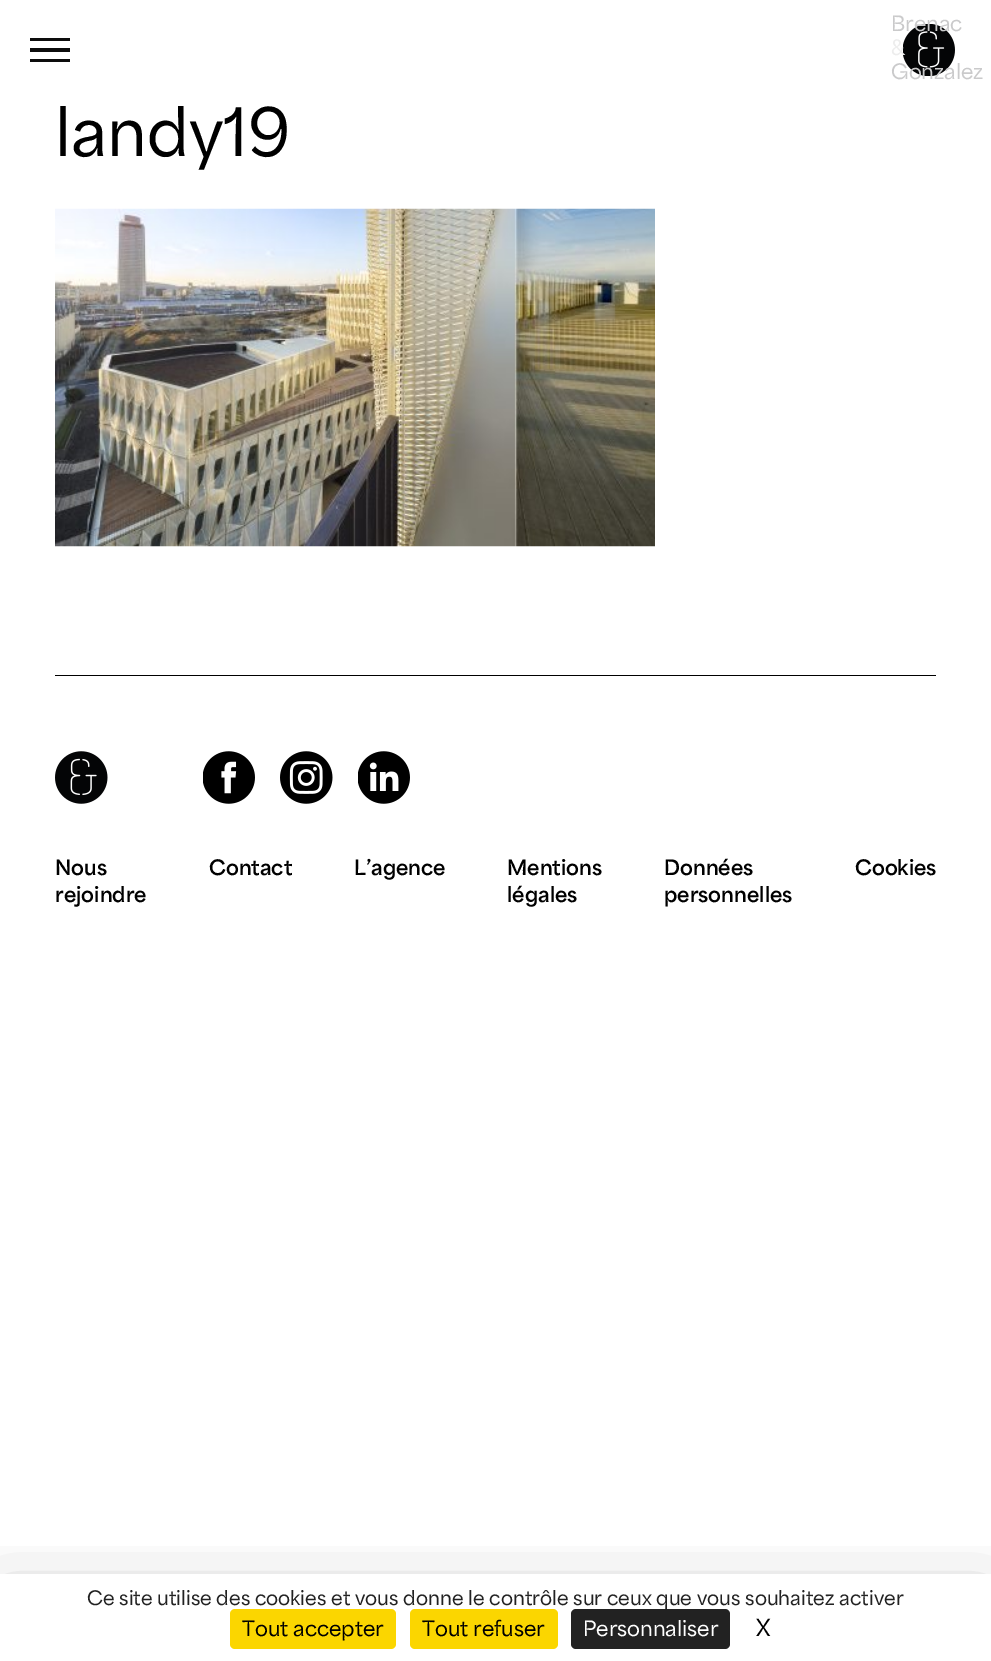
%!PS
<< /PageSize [991 1661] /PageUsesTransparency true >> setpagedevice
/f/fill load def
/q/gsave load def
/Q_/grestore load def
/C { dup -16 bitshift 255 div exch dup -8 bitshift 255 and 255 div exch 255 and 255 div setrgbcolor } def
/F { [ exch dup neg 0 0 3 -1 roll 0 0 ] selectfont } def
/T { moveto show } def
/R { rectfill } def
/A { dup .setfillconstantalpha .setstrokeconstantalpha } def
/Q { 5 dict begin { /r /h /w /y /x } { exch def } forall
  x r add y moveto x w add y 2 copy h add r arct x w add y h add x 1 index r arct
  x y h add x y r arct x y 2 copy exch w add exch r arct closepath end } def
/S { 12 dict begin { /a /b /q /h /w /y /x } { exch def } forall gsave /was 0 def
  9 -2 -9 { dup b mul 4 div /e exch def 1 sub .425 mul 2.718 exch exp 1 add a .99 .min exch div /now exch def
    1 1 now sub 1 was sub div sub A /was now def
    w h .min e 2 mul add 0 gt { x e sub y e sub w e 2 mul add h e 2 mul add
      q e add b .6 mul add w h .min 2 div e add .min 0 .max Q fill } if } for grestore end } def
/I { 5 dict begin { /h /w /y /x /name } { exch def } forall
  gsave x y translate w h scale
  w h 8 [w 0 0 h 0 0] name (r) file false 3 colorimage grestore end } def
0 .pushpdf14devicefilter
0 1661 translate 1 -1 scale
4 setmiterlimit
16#FFFFFF C
0 0 991 1661 R
16#0D0D0D C
30 38 40 3 R
30 48 40 4 R
30 59 40 3 R
(1.rgb) 903 24 52 52 I
/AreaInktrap-SemiBold 20 F
16#CACACB C
(Brenac) 891 31 T
16#EDEDED C
(&) 891 55 T
16#CACACB C
(Gonzalez) 891 79 T
/AreaInktrap-SemiBold 62.5 F
16#000000 C
(landy19) 55 156 T
(2.rgb) 55 208 600 339 I
55 675 881 1 R
(3.rgb) 55 751 53 53 I
(4.rgb) 203 751 52 53 I
(5.rgb) 280 751 53 53 I
(6.rgb) 358 751 52 53 I
/AreaInktrap-ExtraBold 20 F
(Nous) 55 875 T
(rejoindre) 55 902 T
(Contact) 209 875 T
(L’agence) 354 875 T
(Mentions) 507 875 T
(légales) 507 902 T
(Données) 664 875 T
(personnelles) 664 902 T
(Cookies) 855 875 T
q
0 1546 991 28 rectclip
0 1599 991 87 0 37.5 .25 S
Q_
/AreaInktrap-SemiBold 18.75 F
16#222222 C
(Ce site utilise des cookies et vous donne le contrôle sur ceux que vous souhaitez activer) 87 1605 T
16#FBD600 C
230 1609 166 40 5 Q f
/AreaInktrap-SemiBold 20 F
16#000000 C
(Tout accepter) 242 1636 T
16#FBD600 C
410 1609 148 40 5 Q f
16#000000 C
(Tout refuser) 422 1636 T
16#222222 C
571 1609 159 40 5 Q f
16#FFFFFF C
(Personnaliser) 583 1636 T
/AreaInktrap-SemiBold 22 F
16#000000 C
(X) 756 1636 T
.poppdf14devicefilter showpage
